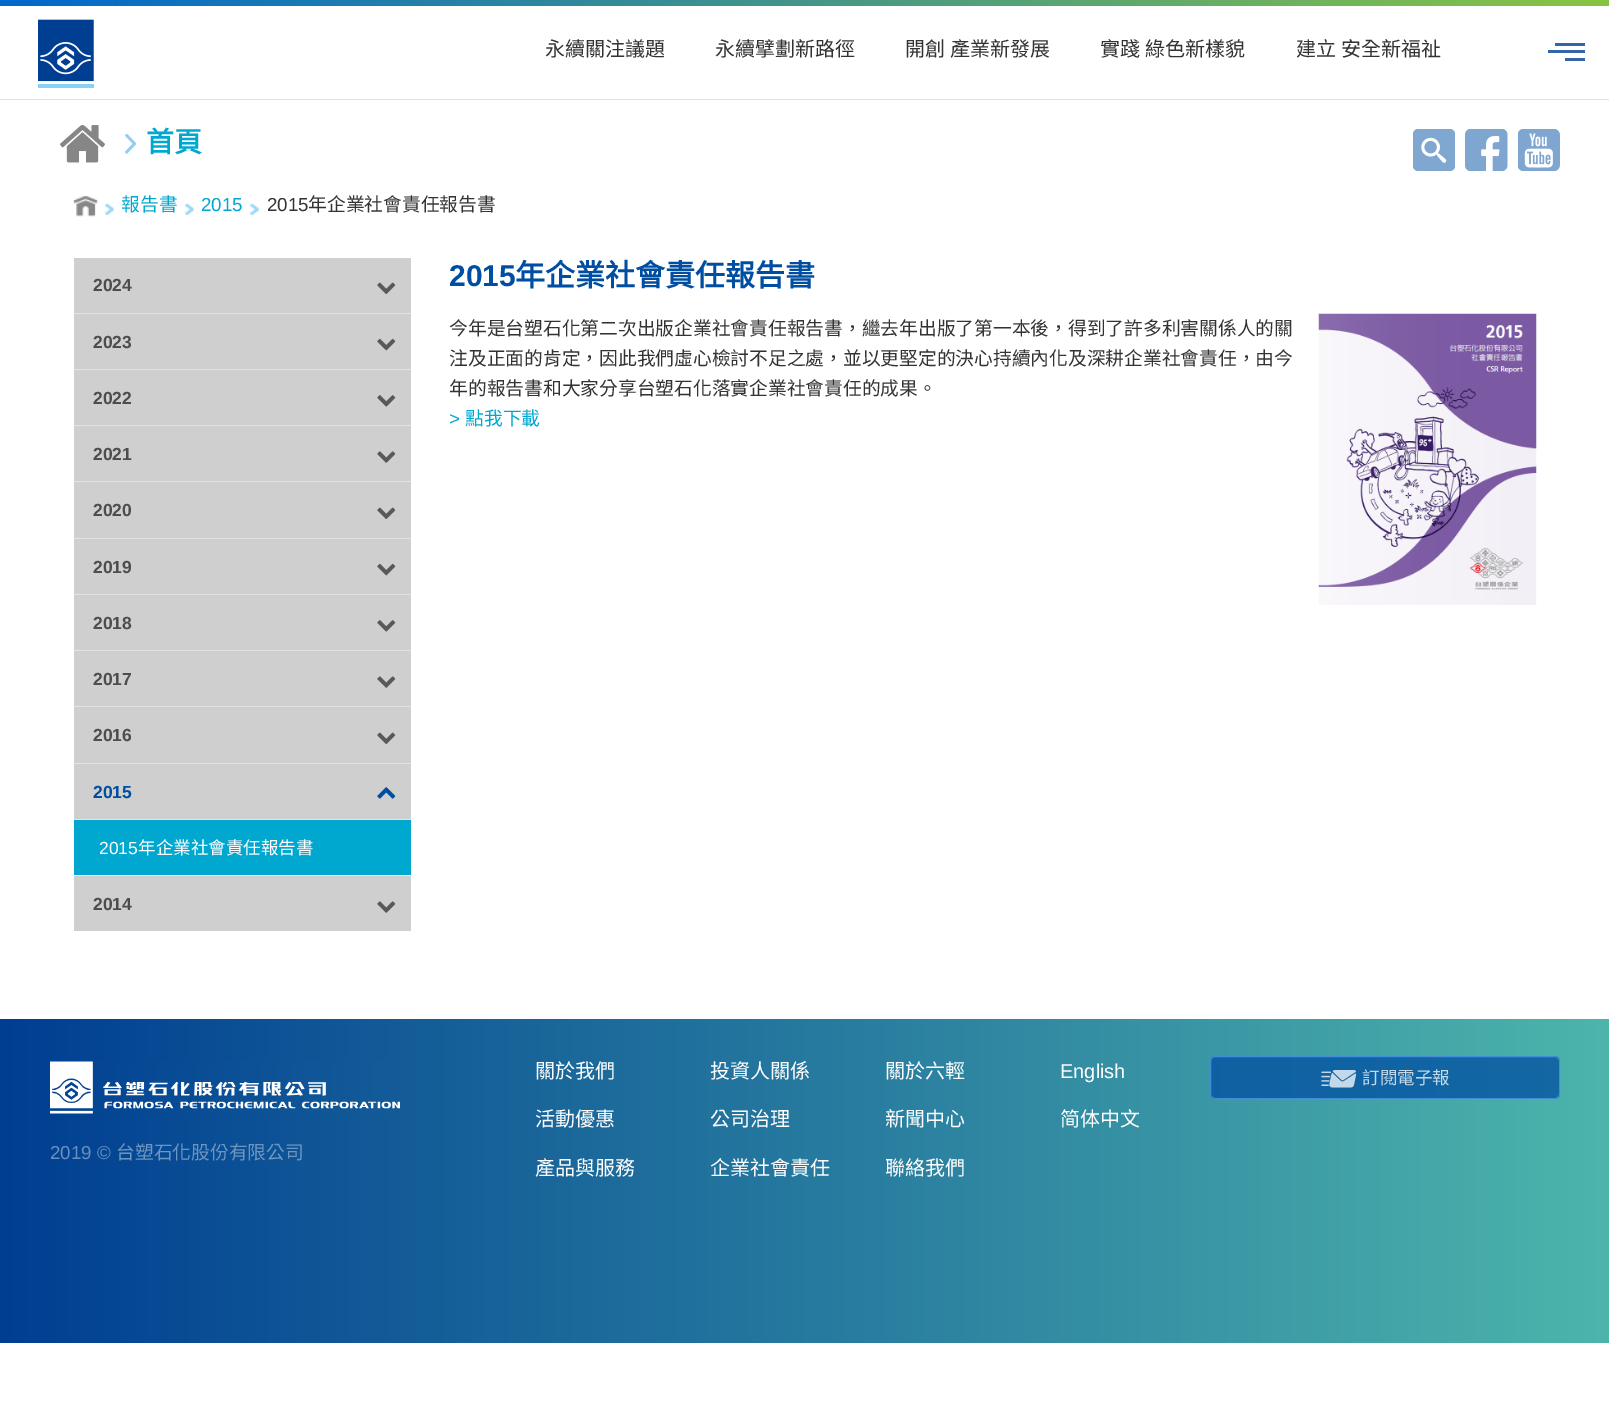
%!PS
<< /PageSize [1609 1409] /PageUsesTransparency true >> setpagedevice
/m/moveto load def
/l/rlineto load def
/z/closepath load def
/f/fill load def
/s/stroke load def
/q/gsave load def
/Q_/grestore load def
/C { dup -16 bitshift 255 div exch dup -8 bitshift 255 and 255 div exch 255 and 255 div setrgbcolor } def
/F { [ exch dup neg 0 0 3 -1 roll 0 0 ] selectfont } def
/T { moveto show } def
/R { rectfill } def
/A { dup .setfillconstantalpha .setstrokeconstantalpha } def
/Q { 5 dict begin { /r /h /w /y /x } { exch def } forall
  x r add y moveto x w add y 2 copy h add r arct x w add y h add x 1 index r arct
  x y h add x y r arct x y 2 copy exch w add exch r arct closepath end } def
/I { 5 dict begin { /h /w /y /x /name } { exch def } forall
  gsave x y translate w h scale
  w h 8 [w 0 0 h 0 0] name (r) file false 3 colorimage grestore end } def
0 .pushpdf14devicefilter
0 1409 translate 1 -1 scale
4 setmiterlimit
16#FFFFFF C
0 0 1609 1409 R
16#E0E0E0 C
0 99 1609 1 R
q 0 0 m 1609 0 l 0 6 l -1609 0 l z clip newpath
<< /ShadingType 2 /ColorSpace /DeviceRGB /Coords [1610 3.1 0 3.1] /Extend [true true] /Function << /FunctionType 2 /Domain [0 1] /C0 [.533 .769 .263] /C1 [0 .408 .808] /N 1 >> >> shfill Q_
(1.rgb) 38 19 56 69 I
16#3365A8 C
1555 43 30 3 R
1548 50 37 3 R
1565 58 20 3 R
/NotoSansCJKTC-Regular 20 F
16#333333 C
(永續關注議題) 545 56 T
(永續擘劃新路徑) 715 56 T
905 56 m 1 0 32 (開創 產業新發展) widthshow
1100 56 m 1 0 32 (實踐 綠色新樣貌) widthshow
1296 56 m 1 0 32 (建立 安全新福祉) widthshow
(2.rgb) 60 125 45 38 I
(3.rgb) 125 134 11 20 I
/NotoSansCJKTC-Bold 28 F
16#00A8D0 C
(首頁) 146 152 T
16#80A7D0 C
1413 129 42 42 5 Q f
(4.rgb) 1421 137 26 26 I
(5.rgb) 1465 129 43 42 I
(6.rgb) 1518 129 42 42 I
(7.rgb) 73 196 25 21 I
(8.rgb) 97 200 17 16 I
/NotoSansCJKTC-Regular 18.75 F
16#00A8D0 C
(報告書) 121 211 T
(9.rgb) 184 203 10 13 I
/LiberationSans-Regular 18.75 F
(2015) 201 211 T
(10.rgb) 242 203 17 13 I
16#333333 C
(2015) 267 211 T
/NotoSansCJKTC-Regular 18.75 F
(年企業社會責任報告書) 308 211 T
16#CFCFCF C
74 258 337 55 R
16#E2E2E2 C
74 313 337 1 R
/LiberationSans-Bold 17.5 F
16#4D4D4D C
(2024) 93 291 T
(11.rgb) 377 282 19 12 I
16#CFCFCF C
74 314 337 55 R
16#E2E2E2 C
74 369 337 1 R
16#4D4D4D C
(2023) 93 348 T
(12.rgb) 377 338 19 13 I
16#CFCFCF C
74 370 337 55 R
16#E2E2E2 C
74 425 337 1 R
16#4D4D4D C
(2022) 93 404 T
(13.rgb) 377 395 19 12 I
16#CFCFCF C
74 426 337 112 R
16#E2E2E2 C
74 481 337 1 R
16#4D4D4D C
(2021) 93 460 T
(14.rgb) 377 451 19 12 I
16#E2E2E2 C
74 538 337 1 R
16#4D4D4D C
(2020) 93 516 T
(11.rgb) 377 507 19 12 I
16#CFCFCF C
74 539 337 55 R
16#E2E2E2 C
74 594 337 1 R
16#4D4D4D C
(2019) 93 573 T
(12.rgb) 377 563 19 13 I
16#CFCFCF C
74 595 337 55 R
16#E2E2E2 C
74 650 337 1 R
16#4D4D4D C
(2018) 93 629 T
(13.rgb) 377 620 19 12 I
16#CFCFCF C
74 651 337 112 R
16#E2E2E2 C
74 706 337 1 R
16#4D4D4D C
(2017) 93 685 T
(14.rgb) 377 676 19 12 I
16#E2E2E2 C
74 763 337 1 R
16#4D4D4D C
(2016) 93 741 T
(11.rgb) 377 732 19 12 I
16#CFCFCF C
74 764 337 55 R
16#E2E2E2 C
74 819 337 1 R
16#004EA1 C
(2015) 93 798 T
(15.rgb) 377 787 19 12 I
16#00A8D0 C
74 820 337 55 R
16#F7F7F7 C
74 875 337 1 R
/LiberationSans-Regular 17.5 F
16#FFFFFF C
(2015) 99 854 T
/NotoSansCJKTC-Regular 17.5 F
(年企業社會責任報告書) 138 854 T
16#CFCFCF C
74 876 337 55 R
/LiberationSans-Bold 17.5 F
16#4D4D4D C
(2014) 93 910 T
(14.rgb) 377 901 19 12 I
/LiberationSans-Bold 30 F
16#004EA1 C
(2015) 449 286 T
/NotoSansCJKTC-Bold 30 F
(年企業社會責任報告書) 515 286 T
/NotoSansCJKTC-Regular 18.75 F
16#333333 C
(今年是台塑石化第二次出版企業社會責任報告書，繼去年出版了第一本後，得到了許多利害關係人的關) 449 335 T
(注及正面的肯定，因此我們虛心檢討不足之處，並以更堅定的決心持續內化及深耕企業社會責任，由今) 449 365 T
(年的報告書和大家分享台塑石化落實企業社會責任的成果。) 449 395 T
(16.rgb) 1318 313 219 292 I
/LiberationSans-Regular 18.75 F
16#00A8D0 C
(>) 449 425 T
/NotoSansCJKTC-Regular 18.75 F
(點我下載) 465 425 T
q 0 1019 m 1609 0 l 0 324 l -1609 0 l z clip newpath
<< /ShadingType 2 /ColorSpace /DeviceRGB /Coords [0 1181 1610 1181] /Extend [true true] /Function << /FunctionType 2 /Domain [0 1] /C0 [0 .243 .573] /C1 [.302 .71 .671] /N 1 >> >> shfill Q_
/NotoSansCJKTC-Regular 20 F
16#FFFFFF C
(關於我們) 535 1078 T
(投資人關係) 710 1078 T
(關於六輕) 885 1078 T
/LiberationSans-Regular 20 F
(English) 1060 1078 T
/NotoSansCJKTC-Regular 20 F
(活動優惠) 535 1126 T
(公司治理) 710 1126 T
(新聞中心) 885 1126 T
(简体中文) 1060 1126 T
(產品與服務) 535 1175 T
(企業社會責任) 710 1175 T
(聯絡我們) 885 1175 T
0.75 A
16#004EA1 C
1210 1056 350 43 5 Q f
16#519BE9 C
1210.5 1056.5 349 42 4.5 Q s
1 A
(17.rgb) 1321 1070 35 18 I
/NotoSansCJKTC-Regular 17.5 F
16#C3D8E8 C
(訂閱電子報) 1362 1084 T
(18.rgb) 50 1061 350 53 I
/LiberationSans-Regular 18.75 F
16#688FBE C
(2019 ©) 50 1159 T
/NotoSansCJKTC-Regular 18.75 F
16#6C95C0 C
(台塑石化股份有限公司) 116 1159 T
.poppdf14devicefilter showpage
